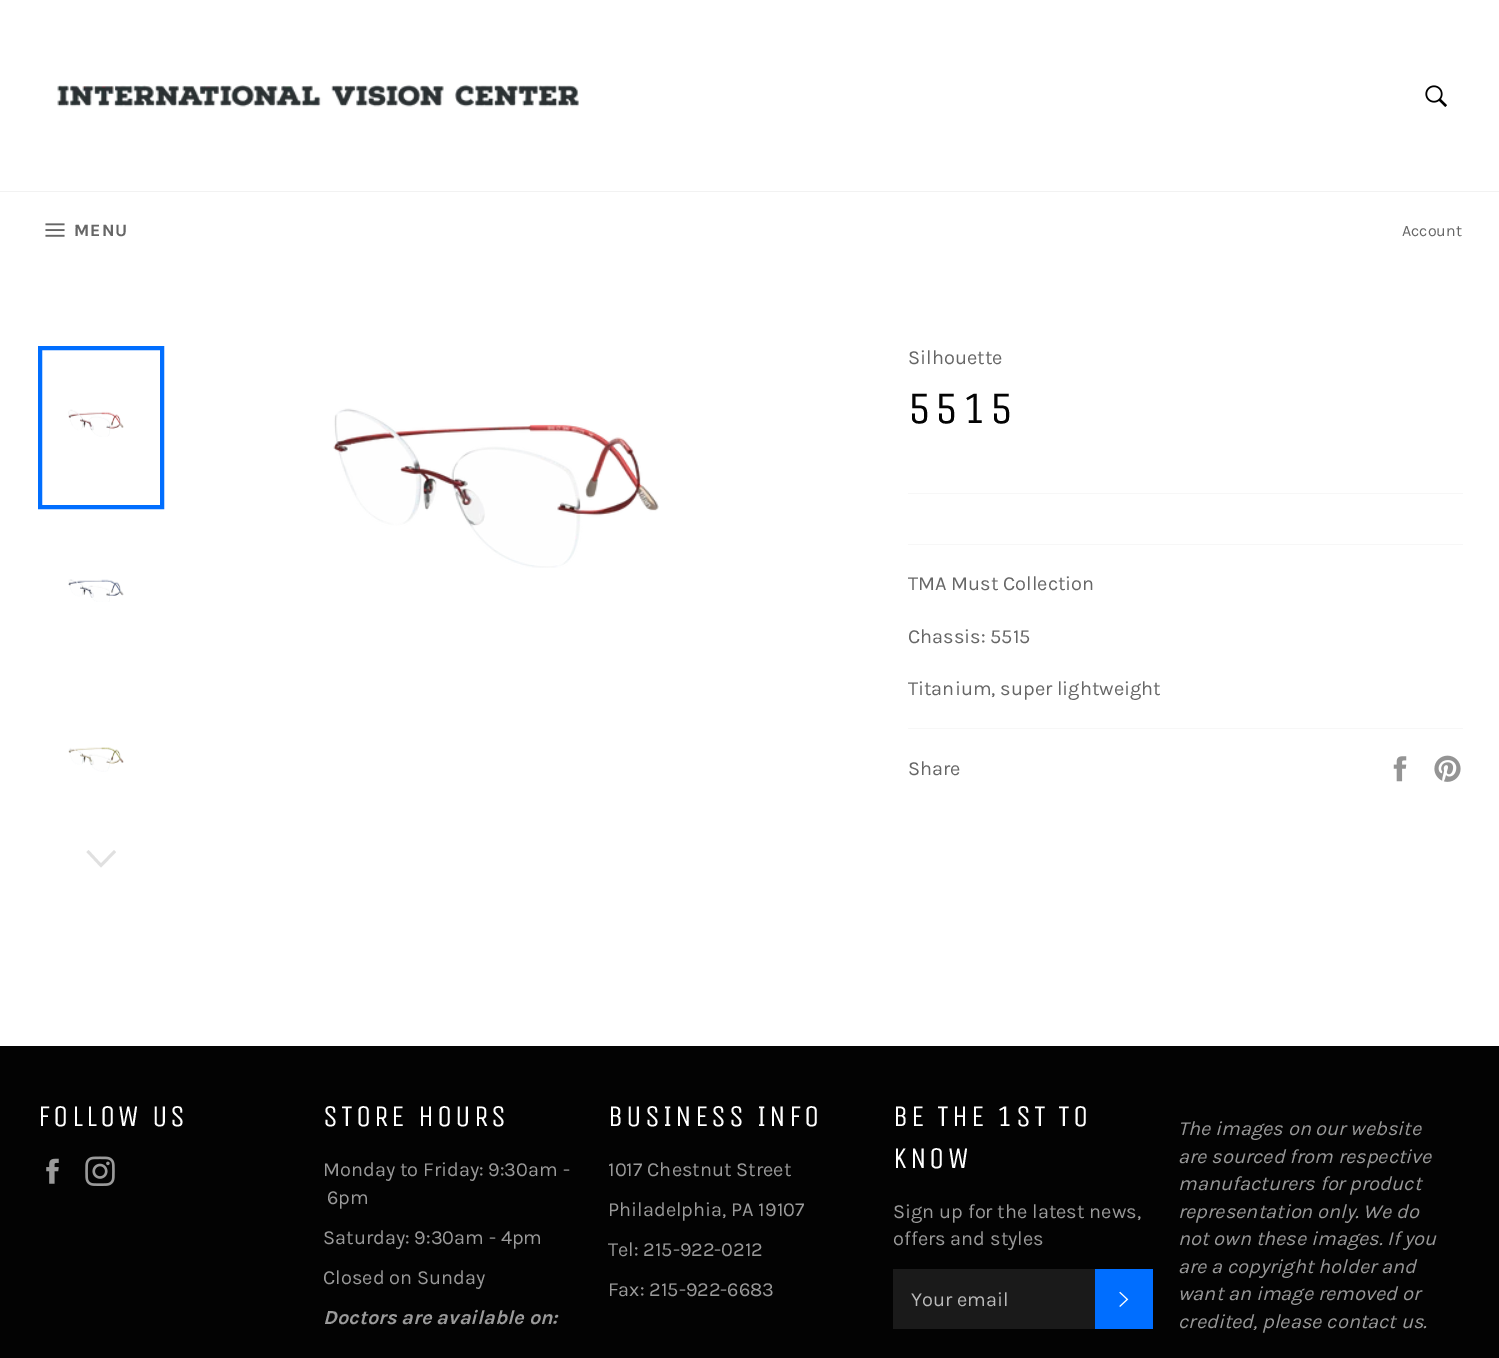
%!PS
<< /PageSize [1499 1358] >> setpagedevice
/m/moveto load def
/l/rlineto load def
/z/closepath load def
/f/fill load def
/w/setlinewidth load def
/C { dup -16 bitshift 255 div exch dup -8 bitshift 255 and 255 div exch 255 and 255 div setrgbcolor } def
/F { [ exch dup neg 0 0 3 -1 roll 0 0 ] selectfont } def
/T { moveto show } def
/R { rectfill } def
/I { 5 dict begin { /h /w /y /x /name } { exch def } forall
  gsave x y translate w h scale
  w h 8 [w 0 0 h 0 0] name (r) file false 3 colorimage grestore end } def
0 1358 translate 1 -1 scale
4 setmiterlimit
16#FFFFFF C
0 0 1499 1358 R
(1.rgb) 57 84 522 23 I
(2.rgb) 1425 85 22 22 I
16#F2F2F2 C
0 191 1499 1 R
(3.rgb) 45 223 20 14 I
/Karla-Bold 17.5 F
16#666666 C
74 236 m 1 0 (MENU) ashow
/Karla-Regular 16 F
(Account) 1402 236 T
(4.rgb) 68 409 56 28 I
16#006EFF C
4 w
40 348 122 159 rectstroke
(5.rgb) 68 579 56 23 I
(6.rgb) 68 747 56 25 I
16#E0E0E0 C
114 850 m 2 2 l -15 15.5 l -14.5 -15.5 l 2 -2 l 12.5 13.5 l z f
(7.rgb) 333 408 326 160 I
/Karla-Regular 20 F
16#666666 C
(Silhouette) 908 364 T
/UnicaOne-Regular 45 F
16#030303 C
908 423 m 4.5 0 (5515) ashow
16#F7F7F7 C
908 493 555 1 R
908 544 555 1 R
/Karla-Regular 20 F
16#666666 C
(TMA Must Collection) 908 590 T
(Chassis: 5515) 908 643 T
(Titanium, super lightweight) 908 695 T
16#F7F7F7 C
908 728 555 1 R
16#666666 C
(Share) 908 775 T
(8.rgb) 1393 756 14 26 I
(9.rgb) 1434 755 27 27 I
16#030303 C
0 1046 1499 312 R
/UnicaOne-Regular 30 F
16#FFFFFF C
38 1126 m 3 0 (FOLLOW US) ashow
(10.rgb) 46 1158 13 26 I
(11.rgb) 85 1156 30 30 I
323 1126 m 3 0 (STORE HOURS) ashow
/Karla-Regular 20 F
16#9A9A9A C
(Monday to Friday: 9:30am -) 323 1176 T
(6pm) 327 1204 T
(Saturday: 9:30am - 4pm) 323 1244 T
(Closed on Sunday) 323 1284 T
/Karla-BoldItalic 20 F
(Doctors are available on:) 323 1324 T
/UnicaOne-Regular 30 F
16#FFFFFF C
608 1126 m 3 0 (BUSINESS INFO) ashow
/Karla-Regular 20 F
16#9A9A9A C
(1017 Chestnut Street) 608 1176 T
(Philadelphia, PA 19107) 608 1216 T
(Tel: 215-922-0212) 608 1256 T
(Fax: 215-922-6683) 608 1296 T
/UnicaOne-Regular 30 F
16#FFFFFF C
893 1126 m 3 0 (BE THE 1ST TO) ashow
893 1168 m 3 0 (KNOW) ashow
/Karla-Regular 20 F
16#9A9A9A C
(Sign up for the latest news,) 893 1218 T
(offers and styles) 893 1245 T
16#1A1A1A C
893 1269 202 60 R
16#BABABA C
(Your email) 911 1306 T
16#006EFF C
1095 1269 58 60 R
(12.rgb) 1119 1291 10 16 I
/Karla-Italic 20 F
16#9A9A9A C
(The images on our website) 1178 1135 T
(are sourced from respective) 1178 1163 T
(manufacturers for product) 1178 1190 T
(representation only. We do) 1178 1218 T
(not own these images. If you) 1178 1245 T
(are a copyright holder and) 1178 1273 T
(want an image removed or) 1178 1300 T
(credited, please contact us.) 1178 1328 T
showpage
